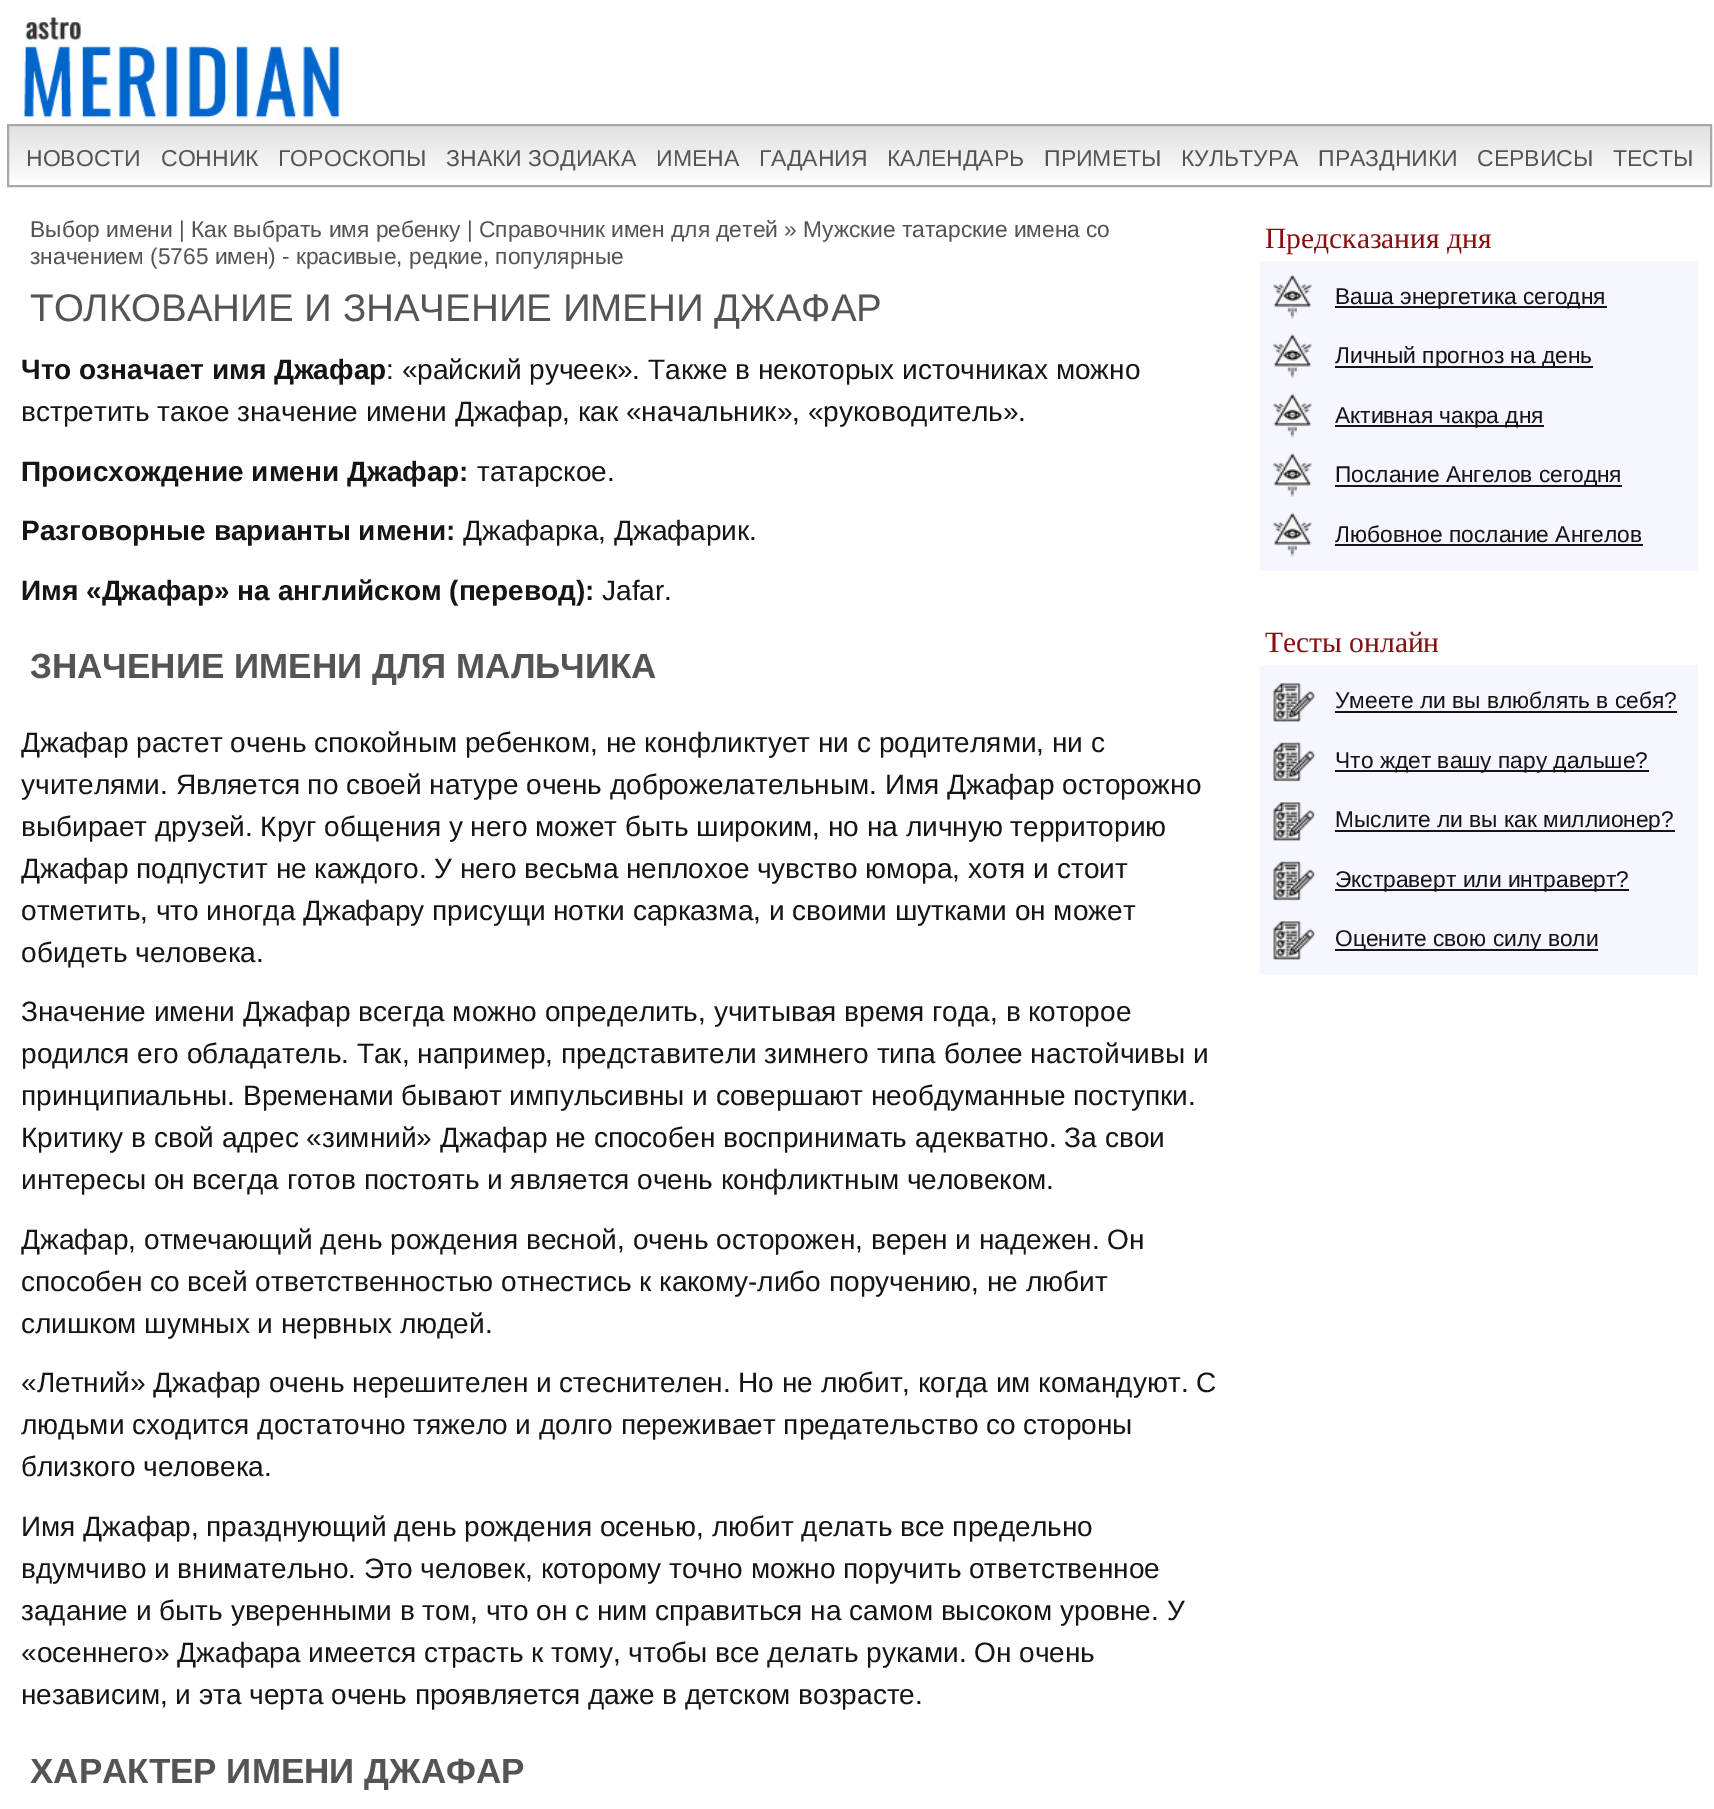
%!PS
<< /PageSize [1714 1809] >> setpagedevice
/m/moveto load def
/l/rlineto load def
/z/closepath load def
/q/gsave load def
/Q_/grestore load def
/w/setlinewidth load def
/C { dup -16 bitshift 255 div exch dup -8 bitshift 255 and 255 div exch 255 and 255 div setrgbcolor } def
/F { [ exch dup neg 0 0 3 -1 roll 0 0 ] selectfont } def
/T { moveto show } def
/R { rectfill } def
/I { 5 dict begin { /h /w /y /x /name } { exch def } forall
  gsave x y translate w h scale
  w h 8 [w 0 0 h 0 0] name (r) file false 3 colorimage grestore end } def
0 1809 translate 1 -1 scale
4 setmiterlimit
16#FFFFFF C
0 0 1714 1809 R
(1.rgb) 17 17 326 103 I
q 9 126 m 1701 0 l 0 55 l -1701 0 l z clip newpath
<< /ShadingType 2 /ColorSpace /DeviceRGB /Coords [859 126 859 186] /Extend [true true] /Function << /FunctionType 2 /Domain [0 1] /C0 [.882 .882 .882] /C1 [1 1 1] /N 1 >> >> shfill Q_
16#A9A9A7 C
2 w
8 125 1703 61 rectstroke
/LiberationSans-Regular 23 F
16#545454 C
(НОВОСТИ) 26 166 T
(СОННИК) 161 166 T
(ГОРОСКОПЫ) 278 166 T
(ЗНАКИ ЗОДИАКА) 446 166 T
(ИМЕНА) 656 166 T
(ГАДАНИЯ) 759 166 T
(КАЛЕНДАРЬ) 887 166 T
(ПРИМЕТЫ) 1044 166 T
(КУЛЬТУРА) 1181 166 T
(ПРАЗДНИКИ) 1318 166 T
(СЕРВИСЫ) 1477 166 T
(ТЕСТЫ) 1613 166 T
/LiberationSans-Regular 22.75 F
(Выбор имени | Как выбрать имя ребенку | Справочник имен для детей » Мужские татарские имена со) 30 237 T
(значением \(5765 имен\) - красивые, редкие, популярные) 30 264 T
/LiberationSans-Regular 38.5 F
(ТОЛКОВАНИЕ И ЗНАЧЕНИЕ ИМЕНИ ДЖАФАР) 30 321 T
/LiberationSans-Bold 28 F
16#151515 C
(Что означает имя Джафар) 21 379 T
/LiberationSans-Regular 28 F
(: «райский ручеек». Также в некоторых источниках можно) 386 379 T
(встретить такое значение имени Джафар, как «начальник», «руководитель».) 21 421 T
/LiberationSans-Bold 28 F
(Происхождение имени Джафар:) 21 481 T
/LiberationSans-Regular 28 F
(татарское.) 477 481 T
/LiberationSans-Bold 28 F
(Разговорные варианты имени:) 21 540 T
/LiberationSans-Regular 28 F
(Джафарка, Джафарик.) 463 540 T
/LiberationSans-Bold 28 F
(Имя «Джафар» на английском \(перевод\):) 21 600 T
/LiberationSans-Regular 28 F
(Jafar.) 602 600 T
/LiberationSans-Bold 35 F
16#545454 C
(ЗНАЧЕНИЕ ИМЕНИ ДЛЯ МАЛЬЧИКА) 30 678 T
/LiberationSans-Regular 28 F
16#151515 C
(Джафар растет очень спокойным ребенком, не конфликтует ни с родителями, ни с) 21 752 T
(учителями. Является по своей натуре очень доброжелательным. Имя Джафар осторожно) 21 794 T
(выбирает друзей. Круг общения у него может быть широким, но на личную территорию) 21 836 T
(Джафар подпустит не каждого. У него весьма неплохое чувство юмора, хотя и стоит) 21 878 T
(отметить, что иногда Джафару присущи нотки сарказма, и своими шутками он может) 21 920 T
(обидеть человека.) 21 962 T
(Значение имени Джафар всегда можно определить, учитывая время года, в которое) 21 1021 T
(родился его обладатель. Так, например, представители зимнего типа более настойчивы и) 21 1063 T
(принципиальны. Временами бывают импульсивны и совершают необдуманные поступки.) 21 1105 T
(Критику в свой адрес «зимний» Джафар не способен воспринимать адекватно. За свои) 21 1147 T
(интересы он всегда готов постоять и является очень конфликтным человеком.) 21 1189 T
(Джафар, отмечающий день рождения весной, очень осторожен, верен и надежен. Он) 21 1249 T
(способен со всей ответственностью отнестись к какому-либо поручению, не любит) 21 1291 T
(слишком шумных и нервных людей.) 21 1333 T
(«Летний» Джафар очень нерешителен и стеснителен. Но не любит, когда им командуют. С) 21 1392 T
(людьми сходится достаточно тяжело и долго переживает предательство со стороны) 21 1434 T
(близкого человека.) 21 1476 T
(Имя Джафар, празднующий день рождения осенью, любит делать все предельно) 21 1536 T
(вдумчиво и внимательно. Это человек, которому точно можно поручить ответственное) 21 1578 T
(задание и быть уверенными в том, что он с ним справиться на самом высоком уровне. У) 21 1620 T
(«осеннего» Джафара имеется страсть к тому, чтобы все делать руками. Он очень) 21 1662 T
(независим, и эта черта очень проявляется даже в детском возрасте.) 21 1704 T
/LiberationSans-Bold 35 F
16#545454 C
(ХАРАКТЕР ИМЕНИ ДЖАФАР) 30 1783 T
/LiberationSerif-Regular 29.5 F
16#860F0F C
(Предсказания дня) 1265 248 T
16#F5F6FF C
1260 261 438 310 R
(2.rgb) 1273 274 39 45 I
16#151515 C
1335 306 272 2 R
/LiberationSans-Regular 22.75 F
(Ваша энергетика сегодня) 1335 304 T
(3.rgb) 1273 334 39 44 I
1335 366 258 2 R
(Личный прогноз на день) 1335 363 T
(2.rgb) 1273 393 39 45 I
1335 425 209 2 R
(Активная чакра дня) 1335 423 T
(3.rgb) 1273 453 39 44 I
1335 485 287 2 R
(Послание Ангелов сегодня) 1335 482 T
(2.rgb) 1273 512 39 45 I
(Любовное послание Ангелов) 1335 542 T
1335 544 308 2 R
/LiberationSerif-Regular 29.5 F
16#860F0F C
(Тесты онлайн) 1265 652 T
16#F5F6FF C
1260 665 438 310 R
(4.rgb) 1273 683 42 39 I
/LiberationSans-Regular 22.75 F
16#151515 C
(Умеете ли вы влюблять в себя?) 1335 708 T
1335 711 342 2 R
(5.rgb) 1273 742 42 40 I
1335 770 314 2 R
(Что ждет вашу пару дальше?) 1335 768 T
(6.rgb) 1273 802 42 39 I
1335 830 340 2 R
(Мыслите ли вы как миллионер?) 1335 827 T
(5.rgb) 1273 861 42 40 I
1335 889 294 2 R
(Экстраверт или интраверт?) 1335 887 T
(6.rgb) 1273 921 42 39 I
1335 949 263 2 R
(Оцените свою силу воли) 1335 946 T
showpage
